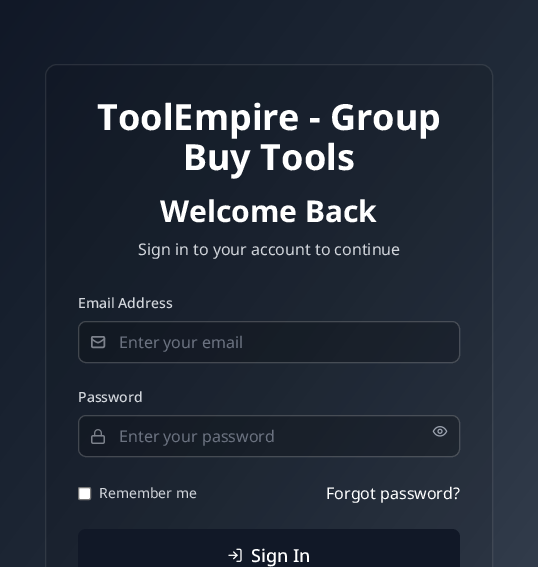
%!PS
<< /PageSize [538 567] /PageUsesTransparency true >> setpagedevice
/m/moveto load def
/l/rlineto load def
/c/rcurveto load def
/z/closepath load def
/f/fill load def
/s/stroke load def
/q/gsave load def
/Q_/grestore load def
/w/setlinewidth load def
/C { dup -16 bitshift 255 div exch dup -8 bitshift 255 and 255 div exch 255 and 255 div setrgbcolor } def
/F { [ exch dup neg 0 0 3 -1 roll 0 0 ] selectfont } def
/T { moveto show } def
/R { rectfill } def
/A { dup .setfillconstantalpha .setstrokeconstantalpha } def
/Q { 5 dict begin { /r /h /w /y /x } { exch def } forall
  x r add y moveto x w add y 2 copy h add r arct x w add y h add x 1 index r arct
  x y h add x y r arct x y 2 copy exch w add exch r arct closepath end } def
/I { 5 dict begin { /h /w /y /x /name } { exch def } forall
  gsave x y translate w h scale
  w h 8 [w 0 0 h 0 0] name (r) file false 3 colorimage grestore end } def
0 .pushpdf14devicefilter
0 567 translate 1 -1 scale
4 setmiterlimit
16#FFFFFF C
0 0 538 567 R
q 0 0 m 538 0 l 0 567 l -538 0 l z clip newpath
<< /ShadingType 2 /ColorSpace /DeviceRGB /Coords [-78 106 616 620] /Extend [true true] /Function << /FunctionType 3 /Domain [0 1] /Functions [<< /FunctionType 2 /Domain [0 1] /C0 [.067 .094 .153] /C1 [.122 .161 .216] /N 1 >> << /FunctionType 2 /Domain [0 1] /C0 [.122 .161 .216] /C1 [.216 .255 .318] /N 1 >>] /Bounds [.5] /Encode [0 1 0 1] >> >> shfill Q_
0.1 A
16#000000 C
45 64 448 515 12 Q f
16#FFFFFF C
45.5 64.5 447 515 11.5 Q s
/NotoSans-Bold 36 F
1 A
(ToolEmpire - Group) 97 130 T
(Buy Tools) 183 170 T
/NotoSans-Bold 30 F
(Welcome Back) 160 222 T
/NotoSans-Regular 16 F
16#D1D5DB C
(Sign in to your account to continue) 138 255 T
/NotoSans-Medium 14 F
(Email Address) 78 308 T
16#9CA3AF C
1.5 w
91.75 336.75 12.5 10.5 1.25 Q s
1.3 w
1 setlinecap
1 setlinejoin
104.5 339 m -8 5 -5 5 -13 0 c s
0.2 A
16#000000 C
78 321 382 42 8 Q f
16#FFFFFF C
1 w
0 setlinecap
0 setlinejoin
78.5 321.5 381 41 7.5 Q s
/NotoSans-Regular 16 F
1 A
16#6B7280 C
(Enter your email) 119 348 T
/NotoSans-Medium 14 F
16#D1D5DB C
(Password) 78 402 T
(1.rgb) 91 429 14 15 I
0.2 A
16#000000 C
78 415 382 42 8 Q f
16#FFFFFF C
78.5 415.5 381 41 7.5 Q s
/NotoSans-Regular 16 F
1 A
16#6B7280 C
(Enter your password) 119 442 T
(2.rgb) 432 426 16 11 I
16#FFFFFF C
78.5 487.5 12 12 1.5 Q q f Q_
16#767676 C
s
/NotoSans-Regular 14 F
16#D1D5DB C
(Remember me) 99 498 T
/NotoSans-Regular 16 F
16#FFFFFF C
(Forgot password?) 326 499 T
16#111827 C
78 529 382 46 8 Q f
(3.rgb) 228 548 14 14 I
/NotoSans-Medium 18 F
16#FFFFFF C
(Sign In) 251 562 T
.poppdf14devicefilter showpage
